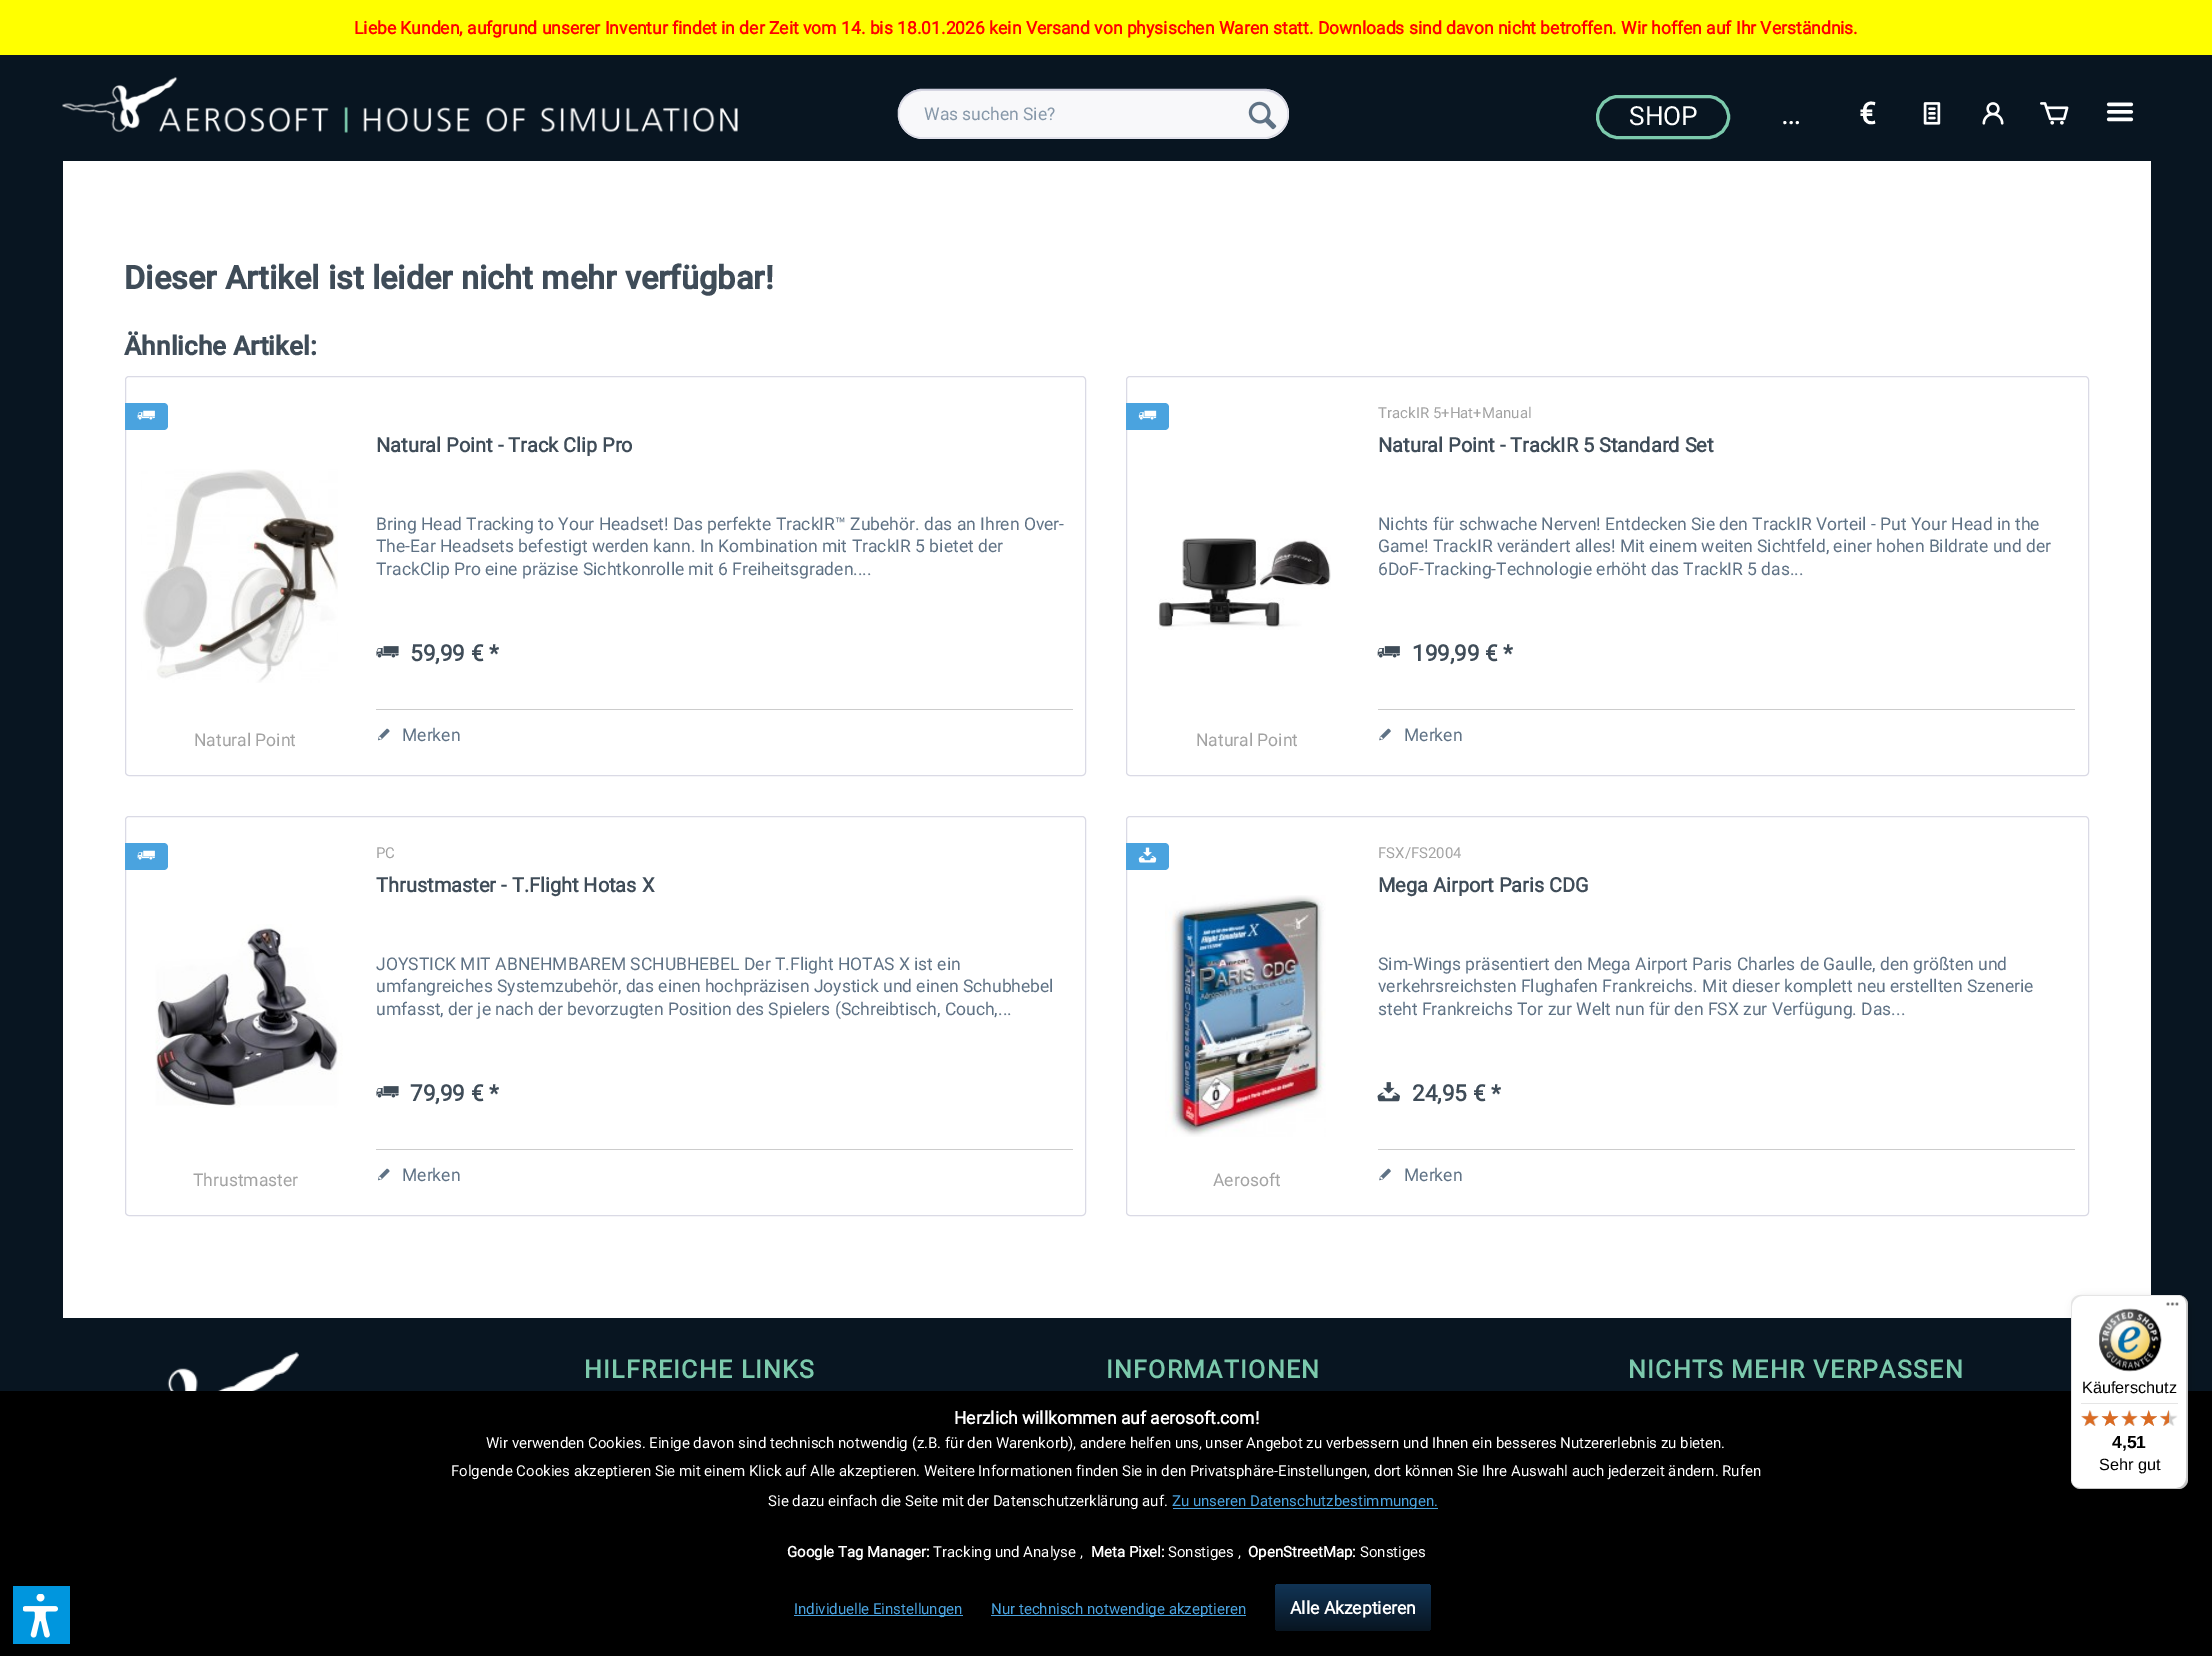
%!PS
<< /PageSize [2212 1656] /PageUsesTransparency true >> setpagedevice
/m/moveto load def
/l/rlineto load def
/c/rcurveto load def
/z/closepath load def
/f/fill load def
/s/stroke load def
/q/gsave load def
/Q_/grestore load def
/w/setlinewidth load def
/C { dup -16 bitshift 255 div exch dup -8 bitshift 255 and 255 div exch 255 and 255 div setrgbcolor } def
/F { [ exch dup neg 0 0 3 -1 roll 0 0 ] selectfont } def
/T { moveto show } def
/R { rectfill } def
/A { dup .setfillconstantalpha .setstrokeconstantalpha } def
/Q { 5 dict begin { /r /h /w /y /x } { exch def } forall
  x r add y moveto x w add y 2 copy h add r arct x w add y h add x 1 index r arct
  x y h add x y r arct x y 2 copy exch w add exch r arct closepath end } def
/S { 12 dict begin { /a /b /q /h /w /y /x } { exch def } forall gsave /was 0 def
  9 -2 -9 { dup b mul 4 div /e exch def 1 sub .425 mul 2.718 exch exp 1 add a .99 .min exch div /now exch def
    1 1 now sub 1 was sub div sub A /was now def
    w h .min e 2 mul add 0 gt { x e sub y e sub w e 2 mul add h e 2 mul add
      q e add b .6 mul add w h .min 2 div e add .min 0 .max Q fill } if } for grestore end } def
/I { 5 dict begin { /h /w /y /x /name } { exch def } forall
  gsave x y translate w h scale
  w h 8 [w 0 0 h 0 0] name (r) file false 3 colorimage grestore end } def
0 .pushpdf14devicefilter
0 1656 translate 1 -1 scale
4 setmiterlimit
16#081521 C
0 0 2212 1656 R
16#FFFF00 C
0 0 2212 55 R
/Roboto-Bold 17.5 F
16#FF0000 C
(Liebe Kunden, aufgrund unserer Inventur findet in der Zeit vom 14. bis 18.01.2026 kein Versand von physischen Waren statt. Downloads sind davon nicht betroffen. Wir hoffen auf Ihr Verständnis.) 354 34 T
(1.rgb) 62 77 676 56 I
16#F8F8FA C
898 89 391 50 25 Q f
16#DADAE5 C
922 91 m 342 0 l 13 0 24 11 24 24 c 0 -14 -11 -25 -24 -25 c -341 0 l -13 0 -24 11 -24 24 c 0 -12 10 -23 23 -23 c z f
16#CBCBDB C
1.2 w
905.5 96.5 m 4.5 -4.5 10.5 -7 17 -7 c 341.5 0 l 6 0 12.5 2.5 17 7 c s
16#DADAE5 C
1281 96.5 m 7 7 9 17.5 5.5 26.5 c -4 9 -13 15 -22.5 15 c -341.5 0 l -21.5 0 -32.5 -26 -17 -41.5 c s
/Roboto-Regular 17.5 F
16#8798A9 C
(Was suchen Sie?) 924 120 T
(2.rgb) 1248 101 29 29 I
16#7BC9AC C
3 w
1597.5 96.5 131 41 20.5 Q s
/Roboto-Regular 26.25 F
16#FFFFFF C
(SHOP) 1629 125 T
/Roboto-Regular 30 F
(…) 1781 124 T
/Roboto-Bold 30 F
(€) 1859 124 T
(3.rgb) 1923 102 18 23 I
(4.rgb) 1982 102 22 23 I
(5.rgb) 2040 102 29 23 I
(6.rgb) 2106 102 28 20 I
63 161 2088 1157 R
/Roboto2-Bold 32.5 F
16#3F4C58 C
(Dieser Artikel ist leider nicht mehr verfügbar!) 124 289 T
/Roboto2-Bold 26.25 F
(Ähnliche Artikel:) 124 355 T
16#DADAE5 C
1 w
125.5 376.5 960 399 3.5 Q s
16#4AA3DF C
125 403 m 39 0 l 2 0 4 2 4 4 c 0 19 l 0 2 -2 4 -4 4 c -39 0 l z f
(7.rgb) 137 410 18 10 I
/Roboto-Bold 20 F
16#3F4C58 C
(Natural Point - Track Clip Pro) 376 452 T
/Roboto-Regular 17.5 F
16#5F7285 C
(Bring Head Tracking to Your Headset! Das perfekte TrackIR™ Zubehör. das an Ihren Over-) 376 530 T
(The-Ear Headsets befestigt werden kann. In Kombination mit TrackIR 5 bietet der) 376 552 T
(TrackClip Pro eine präzise Sichtkonrolle mit 6 Freiheitsgraden....) 376 575 T
(8.rgb) 376 646 23 12 I
/Roboto-Bold 22.5 F
16#3F4C58 C
(59,99 € *) 410 661 T
(9.rgb) 141 469 197 214 I
/Roboto-Regular 17.5 F
16#A3A3A3 C
(Natural Point) 194 746 T
16#CCCCCC C
376 709 697 1 R
(10.rgb) 378 728 12 13 I
16#5F7285 C
(Merken) 402 741 T
16#DADAE5 C
1126.5 376.5 962 399 3.5 Q s
16#4AA3DF C
1126 403 m 39 0 l 2 0 4 2 4 4 c 0 19 l 0 2 -2 4 -4 4 c -39 0 l z f
(11.rgb) 1138 410 19 10 I
/Roboto-Regular 15 F
16#A3A3A3 C
(TrackIR 5+Hat+Manual) 1378 418 T
/Roboto-Bold 20 F
16#3F4C58 C
(Natural Point - TrackIR 5 Standard Set) 1378 452 T
/Roboto-Regular 17.5 F
16#5F7285 C
(Nichts für schwache Nerven! Entdecken Sie den TrackIR Vorteil - Put Your Head in the) 1378 530 T
(Game! TrackIR verändert alles! Mit einem weiten Sichtfeld, einer hohen Bildrate und der) 1378 552 T
(6DoF-Tracking-Technologie erhöht das TrackIR 5 das...) 1378 575 T
(12.rgb) 1377 646 23 12 I
/Roboto-Bold 22.5 F
16#3F4C58 C
(199,99 € *) 1412 661 T
(13.rgb) 1158 538 173 92 I
/Roboto-Regular 17.5 F
16#A3A3A3 C
(Natural Point) 1196 746 T
16#CCCCCC C
1378 709 697 1 R
(14.rgb) 1379 728 12 13 I
16#5F7285 C
(Merken) 1404 741 T
16#DADAE5 C
125.5 816.5 960 399 3.5 Q s
16#4AA3DF C
125 843 m 39 0 l 2 0 4 2 4 4 c 0 19 l 0 2 -2 4 -4 4 c -39 0 l z f
(7.rgb) 137 850 18 10 I
/Roboto-Regular 15 F
16#A3A3A3 C
(PC) 376 858 T
/Roboto-Bold 20 F
16#3F4C58 C
(Thrustmaster - T.Flight Hotas X) 376 892 T
/Roboto-Regular 17.5 F
16#5F7285 C
(JOYSTICK MIT ABNEHMBAREM SCHUBHEBEL Der T.Flight HOTAS X ist ein) 376 970 T
(umfangreiches Systemzubehör, das einen hochpräzisen Joystick und einen Schubhebel) 376 992 T
(umfasst, der je nach der bevorzugten Position des Spielers \(Schreibtisch, Couch,...) 376 1015 T
(8.rgb) 376 1086 23 12 I
/Roboto-Bold 22.5 F
16#3F4C58 C
(79,99 € *) 410 1101 T
(15.rgb) 155 924 188 184 I
/Roboto-Regular 17.5 F
16#A3A3A3 C
(Thrustmaster) 193 1186 T
16#CCCCCC C
376 1149 697 1 R
(10.rgb) 378 1168 12 13 I
16#5F7285 C
(Merken) 402 1181 T
16#DADAE5 C
1126.5 816.5 962 399 3.5 Q s
16#4AA3DF C
1126 843 m 39 0 l 2 0 4 2 4 4 c 0 19 l 0 2 -2 4 -4 4 c -39 0 l z f
(16.rgb) 1138 847 19 16 I
/Roboto-Regular 15 F
16#A3A3A3 C
(FSX/FS2004) 1378 858 T
/Roboto-Bold 20 F
16#3F4C58 C
(Mega Airport Paris CDG) 1378 892 T
/Roboto-Regular 17.5 F
16#5F7285 C
(Sim-Wings präsentiert den Mega Airport Paris Charles de Gaulle, den größten und) 1378 970 T
(verkehrsreichsten Flughafen Frankreichs. Mit dieser komplett neu erstellten Szenerie) 1378 992 T
(steht Frankreichs Tor zur Welt nun für den FSX zur Verfügung. Das...) 1378 1015 T
(17.rgb) 1377 1082 23 20 I
/Roboto-Bold 22.5 F
16#3F4C58 C
(24,95 € *) 1412 1101 T
(18.rgb) 1165 895 161 242 I
/Roboto-Regular 17.5 F
16#A3A3A3 C
(Aerosoft) 1213 1186 T
16#CCCCCC C
1378 1149 697 1 R
(14.rgb) 1379 1168 12 13 I
16#5F7285 C
(Merken) 1404 1181 T
(19.rgb) 167 1352 132 39 I
/Roboto-Bold 25 F
16#7BC9AC C
584 1378 m 1.25 0 (HILFREICHE LINKS) ashow
1106 1378 m 1.25 0 (INFORMATIONEN) ashow
1628 1378 m 1.25 0 (NICHTS MEHR VERPASSEN) ashow
16#000000 C
0 1391 2212 265 R
16#0096DE C
13 1586 57 58 R
(20.rgb) 23 1594 35 44 I
/Roboto-Bold 17.5 F
16#FFFFFF C
(Herzlich willkommen auf aerosoft.com!) 954 1424 T
/Roboto-Regular 15 F
(Wir verwenden Cookies. Einige davon sind technisch notwendig \(z.B. für den Warenkorb\), andere helfen uns, unser Angebot zu verbessern und Ihnen ein besseres Nutzererlebnis zu bieten.) 486 1448 T
(Folgende Cookies akzeptieren Sie mit einem Klick auf Alle akzeptieren. Weitere Informationen finden Sie in den Privatsphäre-Einstellungen, dort können Sie Ihre Auswahl auch jederzeit ändern. Rufen) 451 1476 T
(Sie dazu einfach die Seite mit der Datenschutzerklärung auf.) 768 1506 T
16#4AA3DF C
1173 1508 265 1 R
(Zu unseren Datenschutzbestimmungen.) 1172 1506 T
/Roboto-Bold 15 F
16#FFFFFF C
(Google Tag Manager:) 787 1557 T
/Roboto-Regular 15 F
(Tracking und Analyse ,) 933 1557 T
/Roboto-Bold 15 F
(Meta Pixel:) 1091 1557 T
/Roboto-Regular 15 F
(Sonstiges ,) 1168 1557 T
/Roboto-Bold 15 F
(OpenStreetMap:) 1248 1557 T
/Roboto-Regular 15 F
(Sonstiges) 1360 1557 T
16#4AA3DF C
794 1615 169 1 R
(Individuelle Einstellungen) 794 1614 T
991 1615 255 1 R
(Nur technisch notwendige akzeptieren) 991 1614 T
q 1275 1584 156 47 4 Q clip newpath
<< /ShadingType 2 /ColorSpace /DeviceRGB /Coords [1353 1584 1353 1631] /Extend [true true] /Function << /FunctionType 2 /Domain [0 1] /C0 [.067 .204 .333] /C1 [.031 .082 .129] /N 1 >> >> shfill Q_
/Roboto-Bold 17.5 F
16#FFFFFF C
(Alle Akzeptieren) 1290 1614 T
16#000000 C
2075 1299 116 194 10 5 .15 S
2073 1296 116 194 10 1 .15 S
16#FFFFFF C
2071 1295 117 194 10 Q f
0.1 A
16#000000 C
2082 1296 m 97 0 l 3 0 6 2 8 4 c -2 -3 -5 -5 -9 -5 c -97 0 l -6 0 -10 4 -10 10 c 0 174 l 0 3 1 6 3 8 c -1 -2 -2 -4 -2 -7 c 0 -174 l 0 -5 5 -10 10 -10 c z f
0.2 A
2073 1486 m 2 2 5 3 8 3 c 97 0 l 6 0 10 -4 10 -10 c 0 -174 l 0 -4 -2 -7 -6 -9 c 3 2 4 5 4 8 c 0 174 l 0 5 -4 10 -10 10 c -96 0 l -3 0 -5 -1 -7 -2 c z f
16#323232 C
2073 1485 m 2 3 5 4 8 4 c 97 0 l 6 0 10 -4 10 -10 c 0 -174 l 0 -4 -2 -7 -5 -9 c 2 2 4 5 4 8 c 0 174 l 0 6 -5 10 -10 10 c -97 0 l -2 0 -5 -1 -7 -3 c z f
0.3 A
16#FFFFFF C
2071 1478 m 0 1 l 0 6 4 10 10 10 c 97 0 l 6 0 10 -4 10 -10 c 0 -174 l 0 -4 -2 -7 -5 -9 c 2 2 4 5 4 8 c 0 174 l 0 6 -5 10 -10 10 c -96 0 l -6 0 -10 -4 -10 -10 c z f
1 A
(21.rgb) 2166 1302 13 4 I
(22.rgb) 2099 1308 63 64 I
/LiberationSans-Regular 16.25 F
16#000000 C
(Käuferschutz) 2082 1393 T
16#E5E5E5 C
2081 1403 97 1 R
(23.rgb) 2081 1410 18 16 I
(24.rgb) 2101 1410 18 16 I
(25.rgb) 2121 1410 17 16 I
(26.rgb) 2140 1410 17 16 I
(27.rgb) 2160 1410 18 16 I
(28.rgb) 2081 1410 18 16 I
(29.rgb) 2101 1410 18 16 I
(30.rgb) 2121 1410 17 16 I
(31.rgb) 2140 1410 17 16 I
(32.rgb) 2160 1410 9 16 I
/LiberationSans-Bold 17.5 F
16#000000 C
(4,51) 2112 1448 T
/LiberationSans-Regular 16.25 F
(Sehr gut) 2099 1470 T
.poppdf14devicefilter showpage
